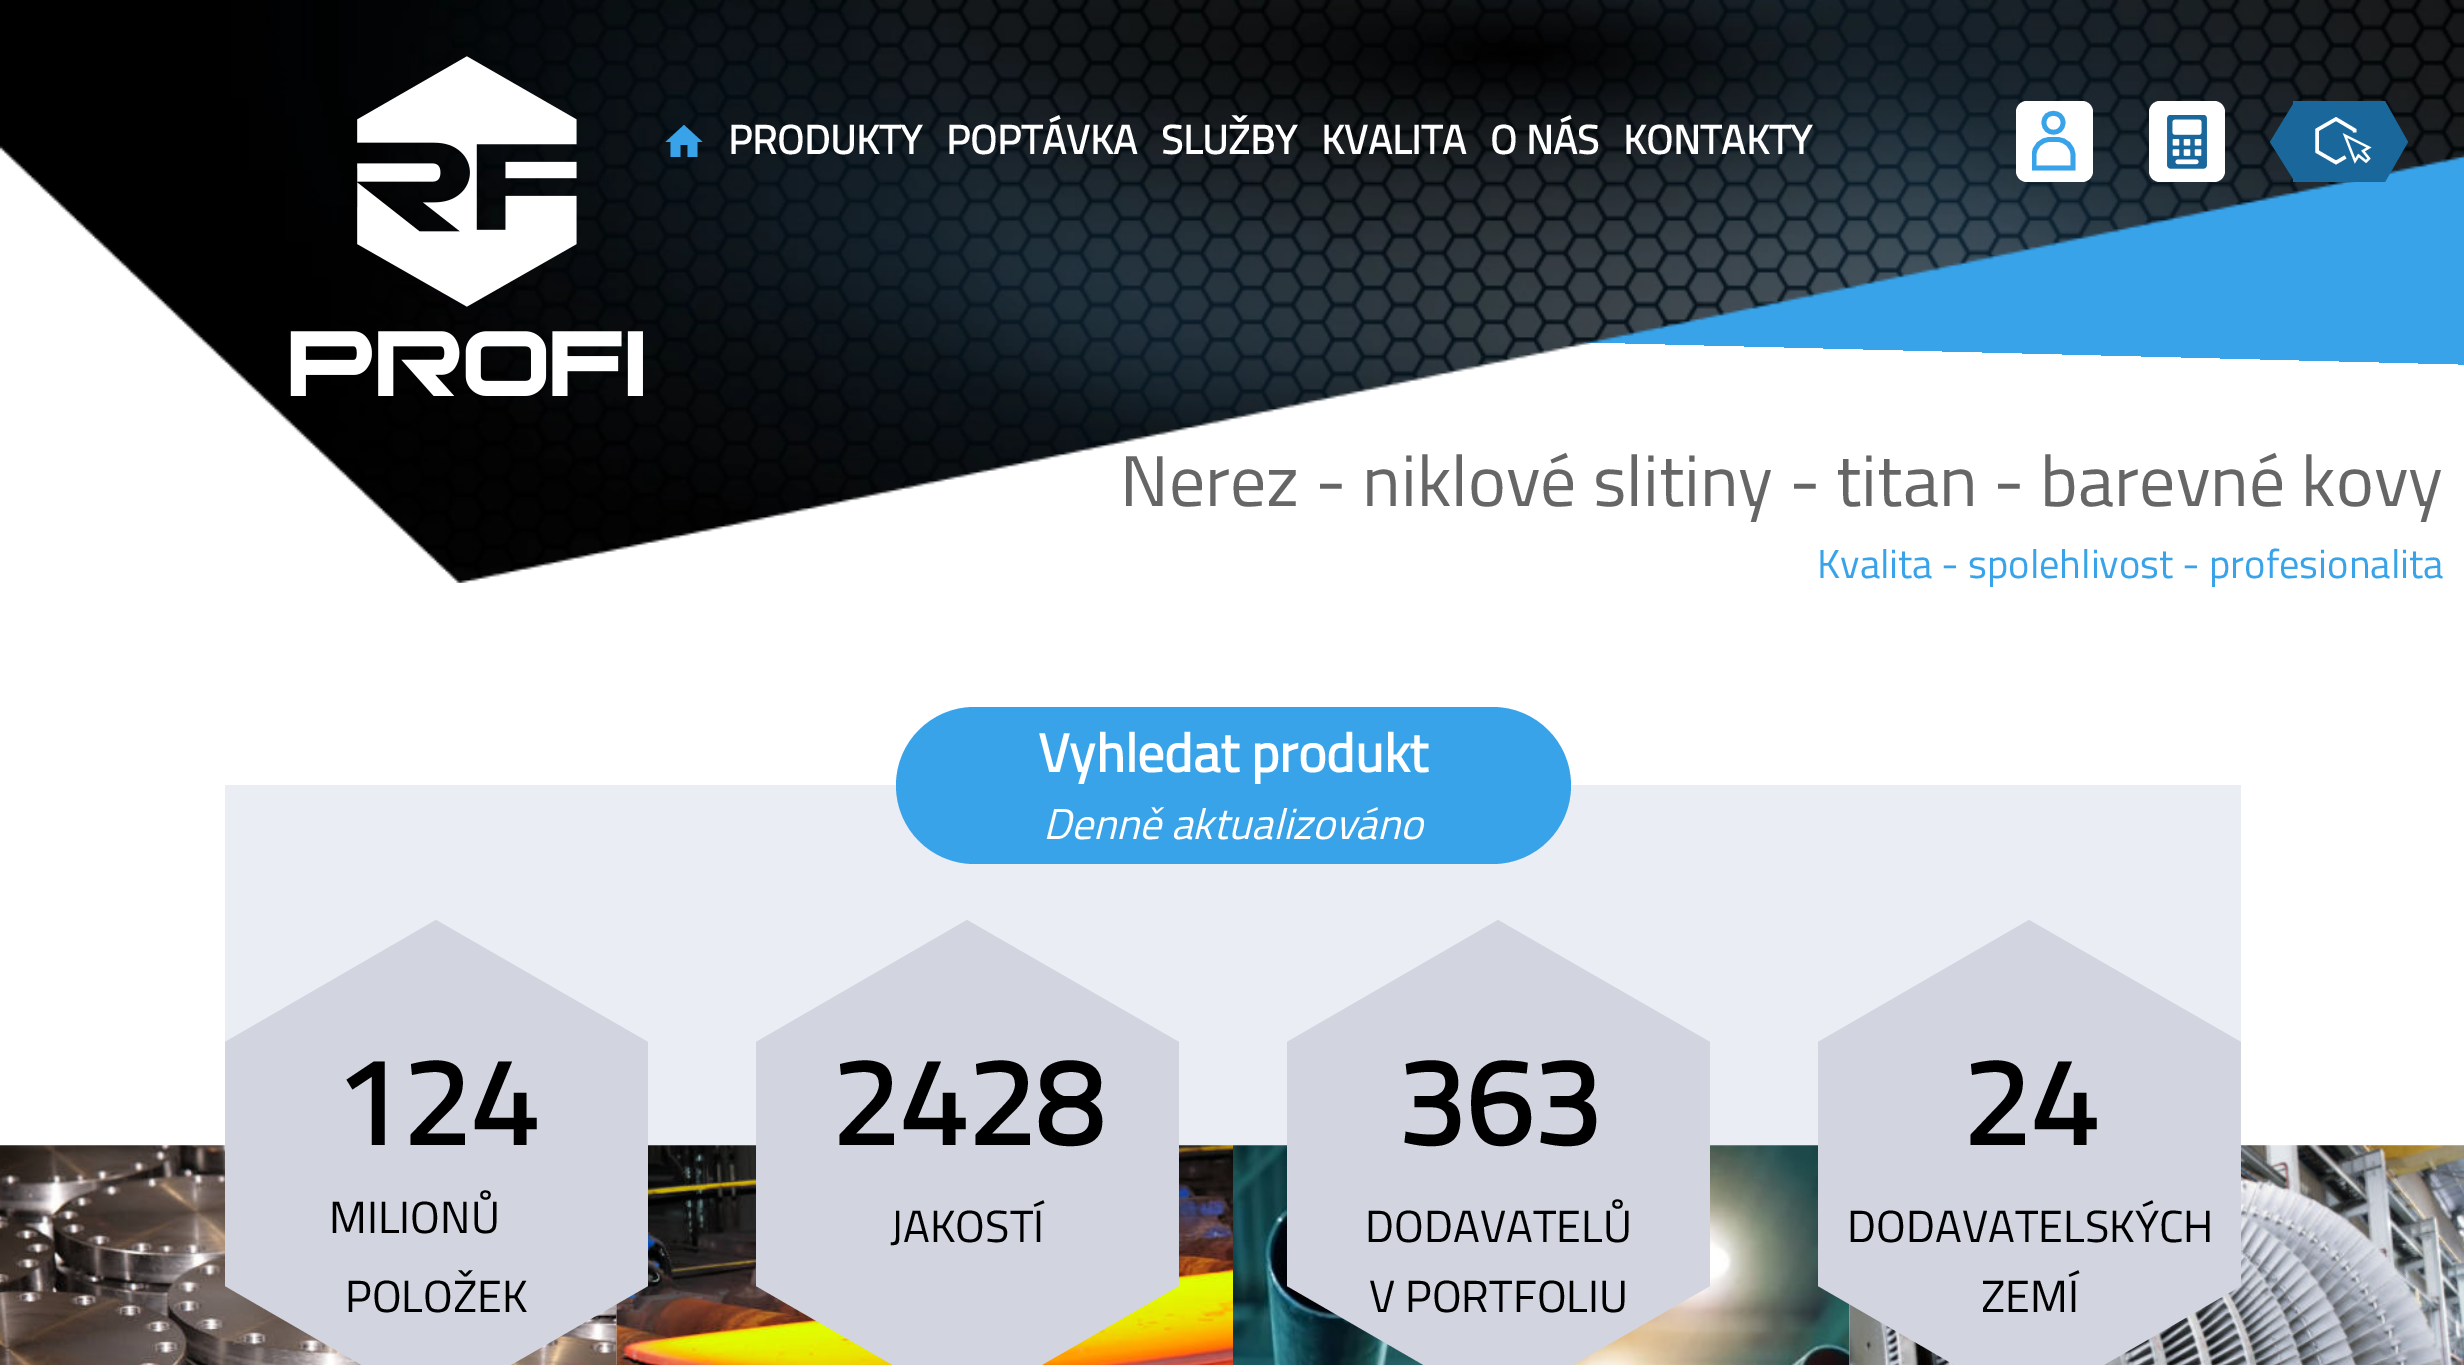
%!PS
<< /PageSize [2464 1365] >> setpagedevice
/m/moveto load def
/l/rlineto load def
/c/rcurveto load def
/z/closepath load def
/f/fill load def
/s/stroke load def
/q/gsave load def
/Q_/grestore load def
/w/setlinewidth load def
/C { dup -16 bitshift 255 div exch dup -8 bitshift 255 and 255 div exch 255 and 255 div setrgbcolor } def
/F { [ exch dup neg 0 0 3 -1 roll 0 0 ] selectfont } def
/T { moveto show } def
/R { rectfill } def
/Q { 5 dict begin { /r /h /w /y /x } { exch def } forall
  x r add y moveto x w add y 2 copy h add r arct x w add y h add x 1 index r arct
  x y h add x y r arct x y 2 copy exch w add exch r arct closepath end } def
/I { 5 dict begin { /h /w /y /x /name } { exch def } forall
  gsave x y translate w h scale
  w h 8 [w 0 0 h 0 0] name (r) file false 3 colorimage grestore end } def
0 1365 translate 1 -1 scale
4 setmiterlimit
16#FFFFFF C
0 0 2464 1365 R
q 225 154 m 2239 0 l 0 211 l -2239 0 l z clip newpath
<< /ShadingType 2 /ColorSpace /DeviceRGB /Coords [1467 -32 1449 682] /Extend [true true] /Function << /FunctionType 3 /Domain [0 1] /Functions [<< /FunctionType 2 /Domain [0 1] /C0 [.22 .639 .914] /C1 [.22 .639 .914] /N 1 >> << /FunctionType 2 /Domain [0 1] /C0 [1 1 1] /C1 [1 1 1] /N 1 >>] /Bounds [.52] /Encode [0 1 0 1] >> >> shfill Q_
(1.rgb) 0 0 2464 583 I
(2.rgb) 290 56 353 340 I
16#38A3E9 C
684 125 m -18.5 17 l 5 0 l 0 15 l 10 0 l 0 -12 l 7 0 l 0 12 l 10 0 l 0 -15 l 5 0 l z f
/TitilliumWeb-Bold 40.5 F
16#FFFFFF C
(PRODUKTY) 728 154 T
(POPTÁVKA) 946 154 T
(SLUŽBY) 1161 154 T
(KVALITA) 1321 154 T
(O NÁS) 1490 154 T
(KONTAKTY) 1623 154 T
2016 101 77 81 11 Q f
16#38A3E9 C
4.7 w
2063 122.5 m 0 13 -19 13 -19 0 c 0 -12.5 19 -12 19 0 c z s
q
2032 101 61 72 rectclip
2073 168 m 0 -12.5 l 0 -9 -7 -16 -16 -16 c -7 0 l -9 0 -16 7 -16 16 c 0 12.5 l z s
Q_
16#FFFFFF C
2149 101 76 81 11 Q f
(3.rgb) 2167 115 40 54 I
q
2270 101 23 81 rectclip
16#1A689B C
2295 101 m 0 81 l -25 -40 l z f
Q_
16#1A689B C
2293 101 92 81 R
16#FFFFFF C
2.2 w
2345 135.5 m 24 12 l -6 3.5 l 6 7.5 l -3 3 l -7.5 -6 l -3.5 5.5 l z s
3.4 w
2345.5 157 m -9.5 5.5 l -19 -11 l 0 -21.5 l 19 -11 l 18.5 11 l 0 2.5 l s
16#1A689B C
2385 101 m 0 81 l 23 -40 l z f
/TitilliumWeb-Regular 72 F
16#666666 C
(Nerez - niklové slitiny - titan - barevné kovy) 1120 506 T
/TitilliumWeb-Regular 40.5 F
16#38A3E9 C
(Kvalita - spolehlivost - profesionalita) 1817 578 T
16#EAEEF4 C
225 785 2016 360 R
16#38A3E9 C
896 707 675 157 78.5 Q f
/TitilliumWeb-Bold 54 F
16#FFFFFF C
(Vyhledat produkt) 1038 772 T
/TitilliumWeb-Italic 43.25 F
(Denně aktualizováno) 1043 839 T
(4.rgb) 0 1145 617 220 I
(5.rgb) 616 1145 617 220 I
16#D2D5DF C
225 1042 m 211 -122 l 212 122 l 0 244 l -212 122 l -211 -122 l z f
/TitilliumWeb-Bold 121.5 F
16#000000 C
(124) 334 1145 T
/TitilliumWeb-Regular 45 F
(MILIONŮ) 329 1233 T
(POLOŽEK) 345 1312 T
16#D2D5DF C
756 1042 m 211 -122 l 212 122 l 0 244 l -212 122 l -211 -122 l z f
/TitilliumWeb-Bold 121.5 F
16#000000 C
(2428) 831 1145 T
/TitilliumWeb-Regular 45 F
(JAKOSTÍ) 890 1242 T
(6.rgb) 1233 1145 617 220 I
16#D2D5DF C
1287 1042 m 211 -122 l 212 122 l 0 244 l -212 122 l -211 -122 l z f
/TitilliumWeb-Bold 121.5 F
16#000000 C
(363) 1397 1145 T
/TitilliumWeb-Regular 45 F
(DODAVATELŮ) 1365 1242 T
(V PORTFOLIU) 1369 1312 T
(7.rgb) 1849 1145 615 220 I
16#D2D5DF C
1818 1042 m 211 -122 l 212 122 l 0 244 l -212 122 l -211 -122 l z f
/TitilliumWeb-Bold 121.5 F
16#000000 C
(24) 1962 1145 T
/TitilliumWeb-Regular 45 F
(DODAVATELSKÝCH) 1847 1242 T
(ZEMÍ) 1981 1312 T
showpage
